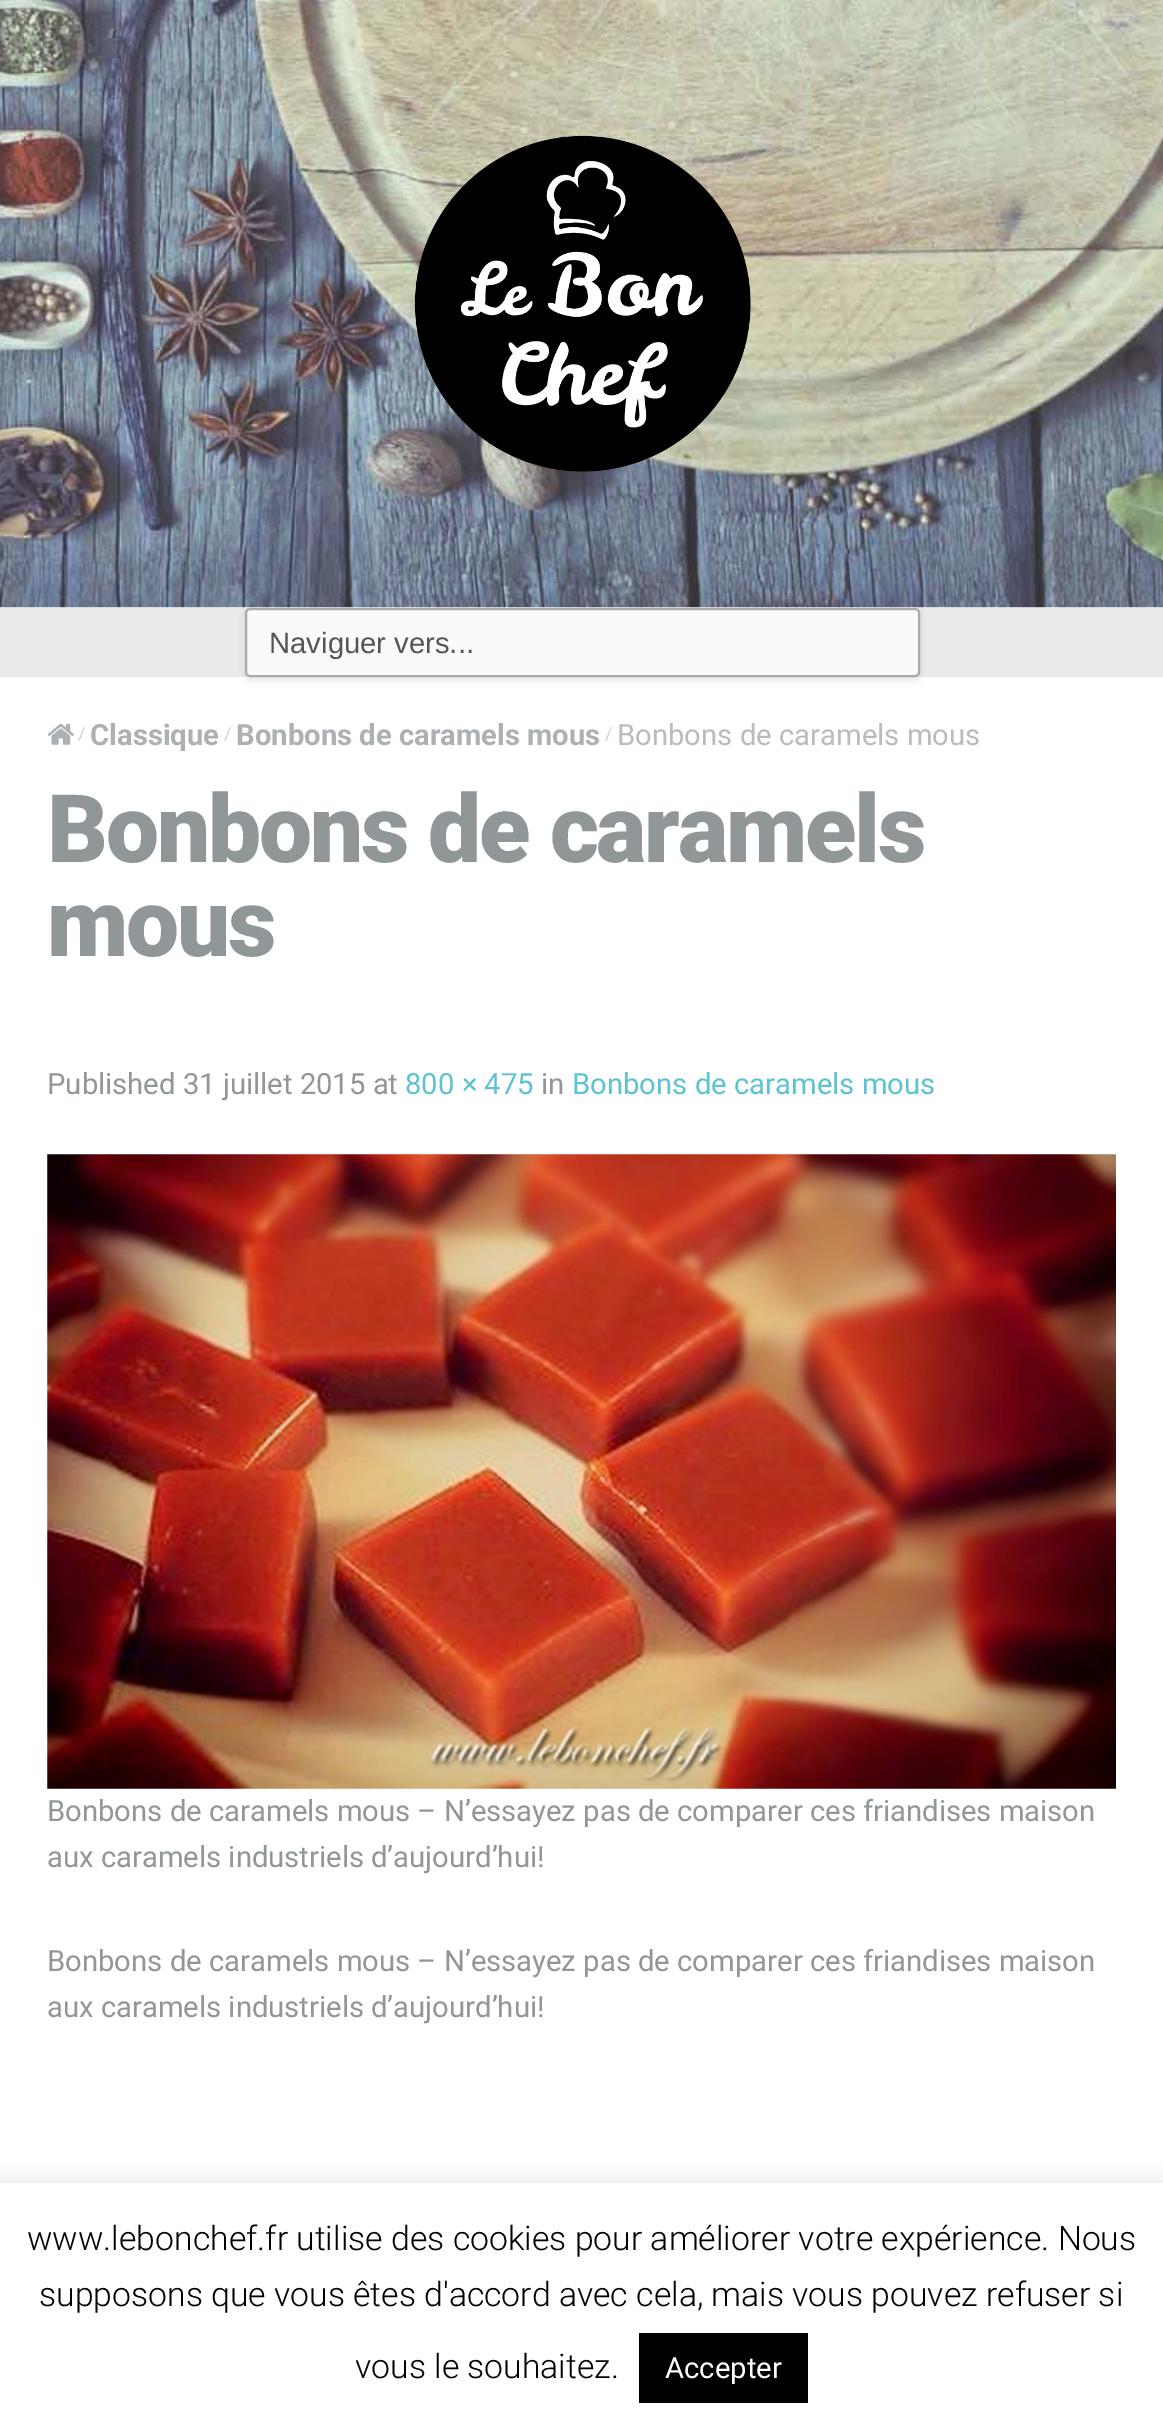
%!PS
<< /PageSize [1163 2430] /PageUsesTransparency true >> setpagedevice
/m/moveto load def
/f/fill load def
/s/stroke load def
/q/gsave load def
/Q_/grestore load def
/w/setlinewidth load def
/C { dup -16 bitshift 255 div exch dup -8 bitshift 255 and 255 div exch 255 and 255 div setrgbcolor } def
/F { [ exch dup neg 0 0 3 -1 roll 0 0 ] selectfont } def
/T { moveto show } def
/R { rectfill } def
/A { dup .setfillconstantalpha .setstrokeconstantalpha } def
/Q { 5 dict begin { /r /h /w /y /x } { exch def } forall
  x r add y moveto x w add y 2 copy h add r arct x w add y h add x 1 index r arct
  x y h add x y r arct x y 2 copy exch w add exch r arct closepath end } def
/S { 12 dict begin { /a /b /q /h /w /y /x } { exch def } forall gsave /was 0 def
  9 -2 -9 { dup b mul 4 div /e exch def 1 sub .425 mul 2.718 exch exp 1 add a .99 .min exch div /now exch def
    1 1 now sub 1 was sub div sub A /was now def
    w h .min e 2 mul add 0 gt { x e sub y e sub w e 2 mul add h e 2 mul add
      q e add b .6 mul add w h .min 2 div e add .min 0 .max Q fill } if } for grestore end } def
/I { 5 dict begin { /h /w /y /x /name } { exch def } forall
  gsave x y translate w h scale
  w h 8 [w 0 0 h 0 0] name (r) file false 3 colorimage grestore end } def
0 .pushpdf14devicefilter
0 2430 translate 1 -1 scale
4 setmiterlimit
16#FFFFFF C
0 0 1163 2430 R
(1.rgb) 0 0 1163 608 I
(2.rgb) 414 135 337 337 I
16#EAEAEA C
0 608 1163 69 R
16#000000 C
245 610 675 70 5 3.5 .1 S
16#FAFAFA C
246 609 673 67 4 Q q f Q_
16#AAAAAA C
2 w
s
/LiberationSans-Regular 29.25 F
16#555555 C
(Naviguer vers...) 269 653 T
(3.rgb) 47 723 27 22 I
/Roboto-Regular 18 F
16#CFCFCF C
(/) 78 740 T
/Roboto-Bold 29.25 F
16#ADB1B3 C
(Classique) 90 745 T
/Roboto-Regular 18 F
16#CFCFCF C
(/) 224 740 T
/Roboto-Bold 29.25 F
16#ADB1B3 C
(Bonbons de caramels mous) 236 745 T
/Roboto-Regular 18 F
16#CFCFCF C
(/) 605 740 T
/Roboto-Regular 29.25 F
16#BBBBBB C
(Bonbons de caramels mous) 617 745 T
/Roboto-Black 94.5 F
16#919699 C
47 862 m -2.25 0 (Bonbons de caramels) ashow
47 956 m -2.25 0 (mous) ashow
/Roboto-Regular 29.25 F
(Published 31 juillet 2015 at) 47 1094 T
16#5DC3D2 C
(800 × 475) 405 1094 T
16#919699 C
(in) 541 1094 T
16#5DC3D2 C
(Bonbons de caramels mous) 572 1094 T
(4.rgb) 47 1154 1069 635 I
16#919699 C
(Bonbons de caramels mous – N’essayez pas de comparer ces friandises maison) 47 1821 T
(aux caramels industriels d’aujourd’hui!) 47 1867 T
(Bonbons de caramels mous – N’essayez pas de comparer ces friandises maison) 47 1971 T
(aux caramels industriels d’aujourd’hui!) 47 2017 T
16#ACABAB C
0 2180 1163 248 0 11 .3 S
16#FFFFFF C
0 2183 1163 247 R
/Roboto-Light 33.75 F
16#000000 C
(www.lebonchef.fr utilise des cookies pour améliorer votre expérience. Nous) 27 2250 T
(supposons que vous êtes d'accord avec cela, mais vous pouvez refuser si) 39 2306 T
(vous le souhaitez.) 355 2378 T
639 2333 169 70 R
/Roboto-Regular 29.25 F
16#FFFFFF C
(Accepter) 665 2378 T
.poppdf14devicefilter showpage
